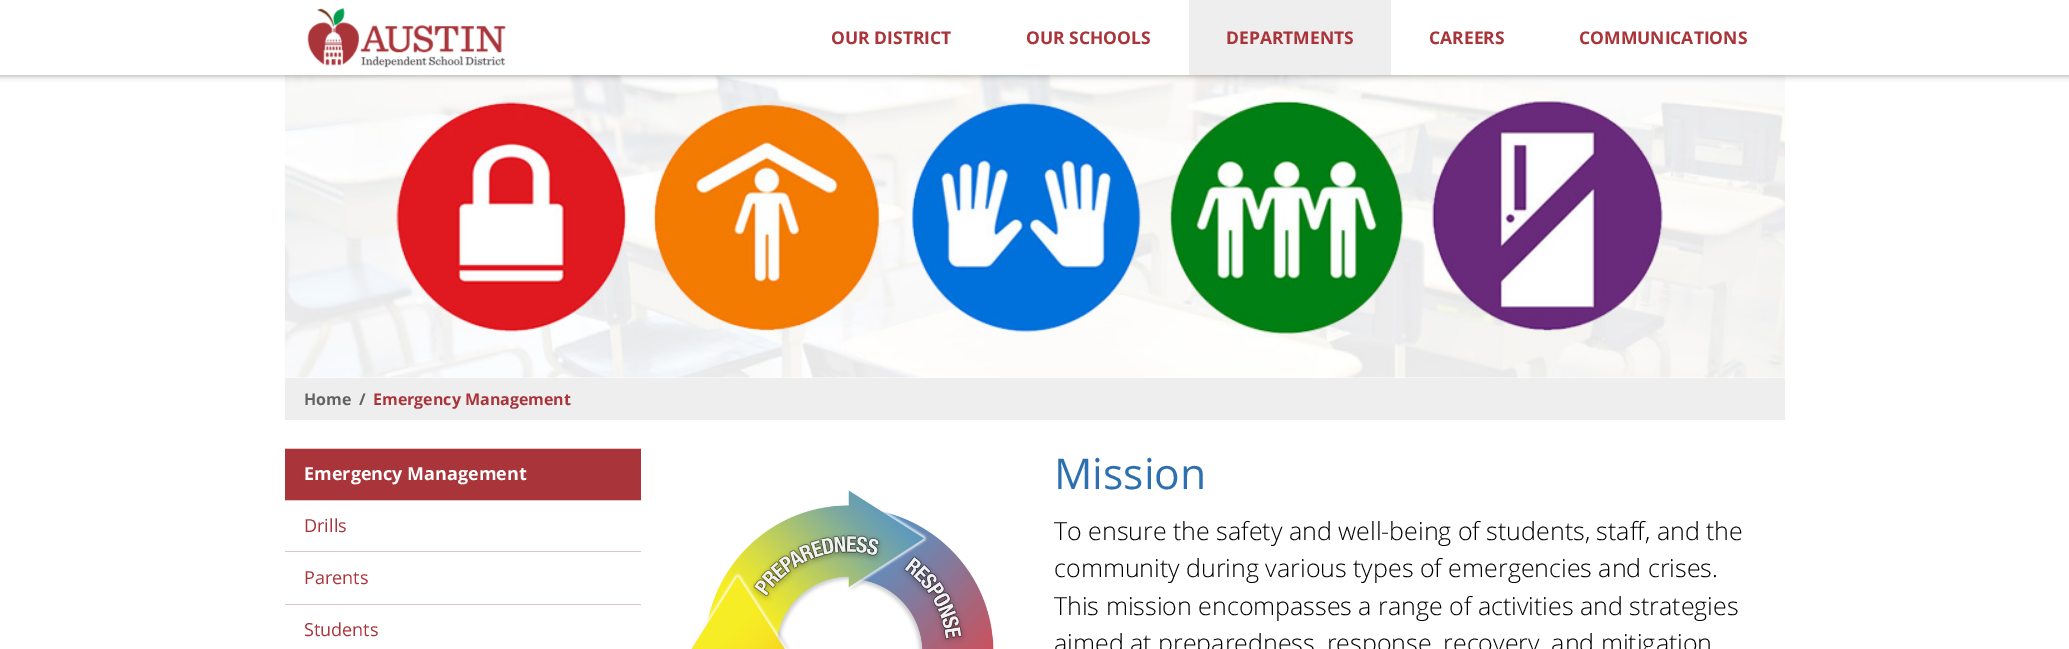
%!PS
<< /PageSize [2069 649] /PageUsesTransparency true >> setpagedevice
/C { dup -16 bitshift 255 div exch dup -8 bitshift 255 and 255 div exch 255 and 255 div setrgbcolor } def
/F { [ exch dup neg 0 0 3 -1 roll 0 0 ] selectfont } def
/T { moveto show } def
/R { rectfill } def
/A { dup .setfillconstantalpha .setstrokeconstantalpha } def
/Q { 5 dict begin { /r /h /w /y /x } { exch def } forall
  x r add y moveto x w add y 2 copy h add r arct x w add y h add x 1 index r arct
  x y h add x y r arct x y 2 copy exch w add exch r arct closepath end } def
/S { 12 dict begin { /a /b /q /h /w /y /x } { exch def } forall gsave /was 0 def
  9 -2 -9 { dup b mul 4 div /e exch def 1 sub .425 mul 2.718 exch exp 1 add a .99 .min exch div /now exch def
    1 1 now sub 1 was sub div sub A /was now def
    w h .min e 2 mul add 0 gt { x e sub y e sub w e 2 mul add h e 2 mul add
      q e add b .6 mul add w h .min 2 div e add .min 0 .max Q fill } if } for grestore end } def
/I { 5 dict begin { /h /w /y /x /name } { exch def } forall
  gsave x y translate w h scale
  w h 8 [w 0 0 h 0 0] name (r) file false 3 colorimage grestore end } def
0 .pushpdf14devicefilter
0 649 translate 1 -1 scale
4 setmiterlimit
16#FFFFFF C
0 0 2069 649 R
(2.rgb) 285 75 1500 303 I
16#000000 C
0 1 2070 75 0 3 .33 S
16#FFFFFF C
0 0 2069 75 R
(1.rgb) 307 8 199 60 I
/OpenSans-Bold 17.5 F
16#A9343A C
(OUR DISTRICT) 831 44 T
(OUR SCHOOLS) 1026 44 T
16#EEEEEE C
1189 0 202 75 R
16#A9343A C
(DEPARTMENTS) 1226 44 T
(CAREERS) 1429 44 T
(COMMUNICATIONS) 1579 44 T
16#EEEEEE C
285 378 1500 42 R
/OpenSans-Bold 16 F
16#626262 C
(Home) 304 405 T
(/) 359 405 T
16#A9343A C
(Emergency Management) 373 405 T
16#E4C3C6 C
285 448 356 1 R
16#A9343A C
285 449 356 51 R
/OpenSans-Bold 18 F
16#FFFFFF C
(Emergency Management) 304 480 T
16#E4C3C6 C
285 500 356 1 R
/OpenSans-Regular 18 F
16#A9343A C
(Drills) 304 532 T
16#E4C3C6 C
285 551 356 1 R
16#A9343A C
(Parents) 304 584 T
16#E4C3C6 C
285 604 356 1 R
16#A9343A C
(Students) 304 636 T
(3.rgb) 691 490 303 159 I
/OpenSans-Regular 42.5 F
16#2D70AF C
(Mission) 1054 489 T
/OpenSans-Light 25 F
16#000000 C
(To ensure the safety and well-being of students, staff, and the) 1054 540 T
(community during various types of emergencies and crises.) 1054 577 T
(This mission encompasses a range of activities and strategies) 1054 615 T
(aimed at preparedness, response, recovery, and mitigation) 1054 652 T
.poppdf14devicefilter showpage
